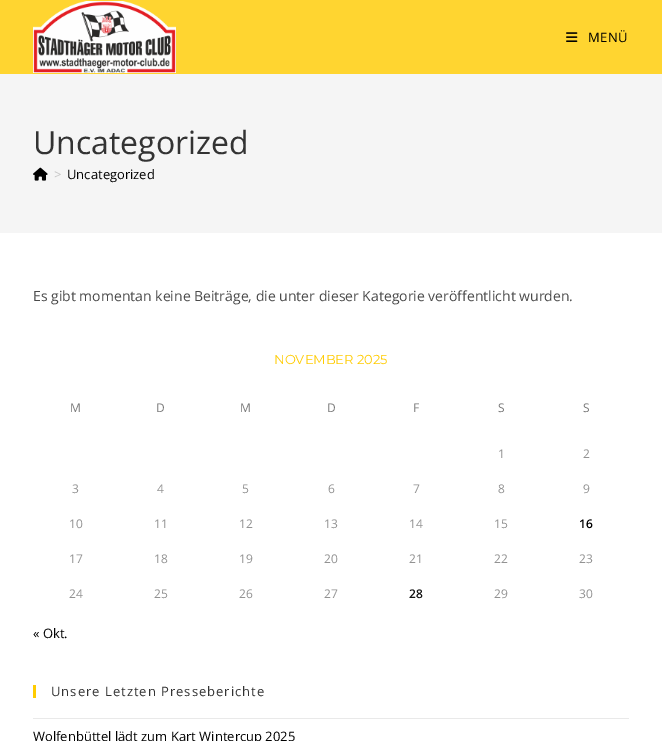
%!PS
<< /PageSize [662 741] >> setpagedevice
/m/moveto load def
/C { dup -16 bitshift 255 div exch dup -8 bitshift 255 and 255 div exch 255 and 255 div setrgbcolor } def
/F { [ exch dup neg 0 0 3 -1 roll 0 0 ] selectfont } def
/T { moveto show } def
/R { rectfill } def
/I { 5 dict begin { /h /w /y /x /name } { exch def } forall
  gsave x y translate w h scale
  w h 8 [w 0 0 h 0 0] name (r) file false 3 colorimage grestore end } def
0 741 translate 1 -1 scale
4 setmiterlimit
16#FFFFFF C
0 0 662 741 R
16#FFD530 C
0 0 662 74 R
(1.rgb) 33 1 143 72 I
(2.rgb) 566 32 12 10 I
/OpenSans-Regular 13 F
16#000000 C
588 42 m .5 0 (MENÜ) ashow
16#F5F5F5 C
0 74 662 159 R
/OpenSans-Regular 32 F
16#333333 C
(Uncategorized) 33 154 T
(3.rgb) 33 167 15 14 I
/OpenSans-Regular 13 F
16#C6C6C6 C
(>) 54 179 T
16#000000 C
(Uncategorized) 67 179 T
/OpenSans-Regular 14 F
16#4A4A4A C
(Es gibt momentan keine Beiträge, die unter dieser Kategorie veröffentlicht wurden.) 33 301 T
/Montserrat-Regular 13 F
16#FFCC01 C
(NOVEMBER 2025) 274 364 T
/OpenSans-Regular 12 F
16#777777 C
(M) 70 412 T
(D) 156 412 T
(M) 240 412 T
(D) 327 412 T
(F) 413 412 T
(S) 498 412 T
(S) 583 412 T
16#929292 C
(1) 498 458 T
(2) 583 458 T
(3) 72 493 T
(4) 157 493 T
(5) 242 493 T
(6) 328 493 T
(7) 413 493 T
(8) 498 493 T
(9) 583 493 T
(10) 69 528 T
(11) 154 528 T
(12) 239 528 T
(13) 324 528 T
(14) 409 528 T
(15) 494 528 T
/OpenSans-SemiBold 12 F
16#000000 C
(16) 579 528 T
/OpenSans-Regular 12 F
16#929292 C
(17) 69 563 T
(18) 154 563 T
(19) 239 563 T
(20) 324 563 T
(21) 409 563 T
(22) 494 563 T
(23) 579 563 T
(24) 69 598 T
(25) 154 598 T
(26) 239 598 T
(27) 324 598 T
/OpenSans-SemiBold 12 F
16#111111 C
(28) 409 598 T
/OpenSans-Regular 12 F
16#929292 C
(29) 494 598 T
(30) 579 598 T
/OpenSans-Regular 13 F
16#000000 C
(« Okt.) 33 638 T
16#FFCC01 C
33 685 3 13 R
16#333333 C
51 696 m 1 0 (Unsere Letzten Presseberichte) ashow
16#E9E9E9 C
33 718 596 1 R
16#000000 C
(Wolfenbüttel lädt zum Kart Wintercup 2025) 33 741 T
showpage
